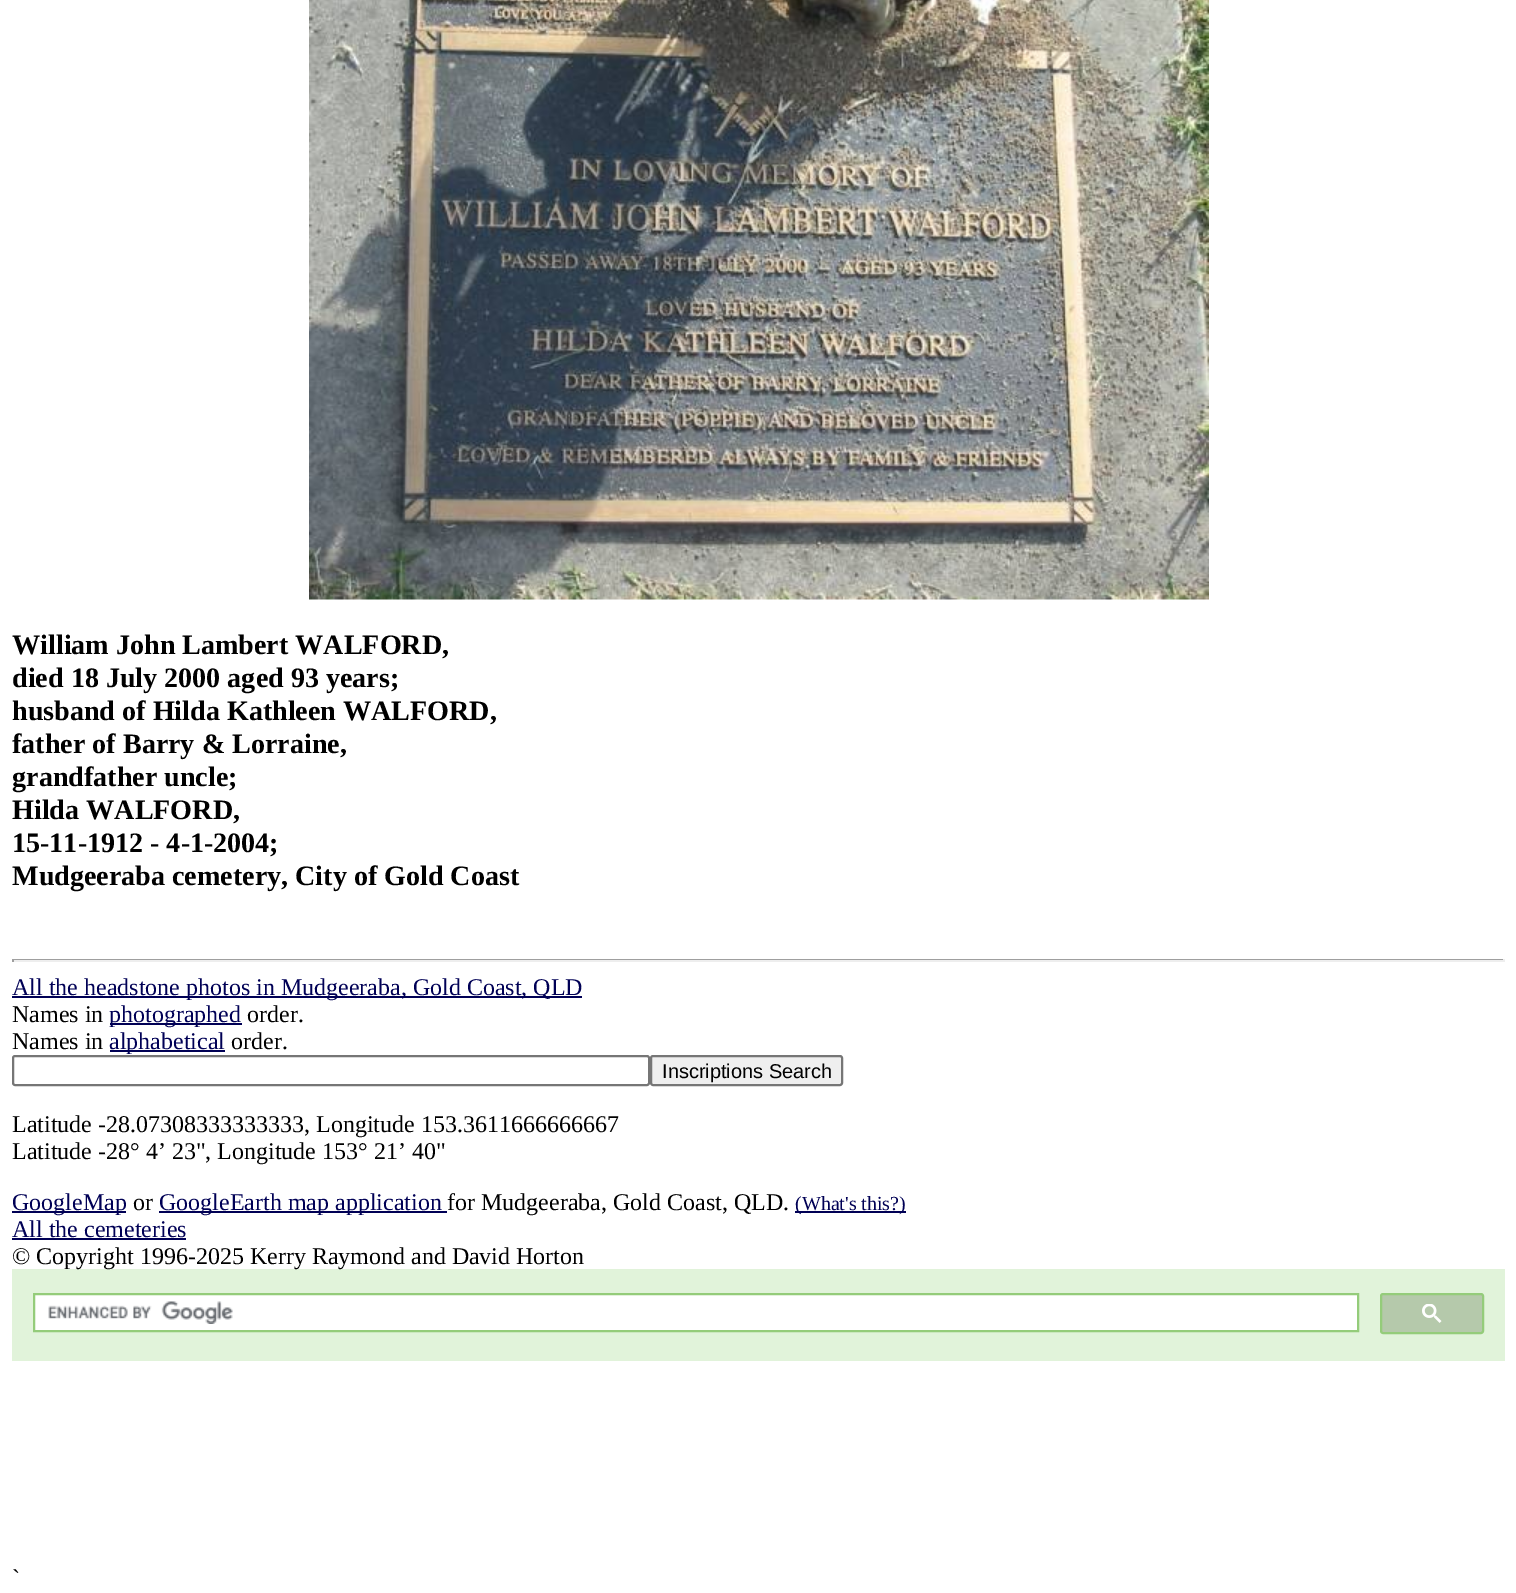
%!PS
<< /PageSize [1516 1593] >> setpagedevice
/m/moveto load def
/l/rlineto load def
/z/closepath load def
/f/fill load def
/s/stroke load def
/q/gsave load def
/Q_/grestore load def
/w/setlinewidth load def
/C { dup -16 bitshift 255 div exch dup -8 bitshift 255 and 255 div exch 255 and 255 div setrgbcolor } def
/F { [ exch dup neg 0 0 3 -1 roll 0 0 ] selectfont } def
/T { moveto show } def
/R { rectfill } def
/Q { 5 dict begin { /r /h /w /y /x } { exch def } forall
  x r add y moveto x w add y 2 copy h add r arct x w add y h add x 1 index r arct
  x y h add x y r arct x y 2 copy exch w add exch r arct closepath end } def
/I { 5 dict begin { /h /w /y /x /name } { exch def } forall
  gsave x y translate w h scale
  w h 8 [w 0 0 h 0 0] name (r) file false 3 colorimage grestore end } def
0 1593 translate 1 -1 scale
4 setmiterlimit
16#FFFFFF C
0 0 1516 1593 R
(1.rgb) 309 0 900 600 I
/LiberationSerif-Bold 28.1 F
16#000000 C
(William John Lambert WALFORD,) 12 654 T
(died 18 July 2000 aged 93 years;) 12 687 T
(husband of Hilda Kathleen WALFORD,) 12 720 T
(father of Barry & Lorraine,) 12 753 T
(grandfather uncle;) 12 786 T
(Hilda WALFORD,) 12 819 T
(15-11-1912 - 4-1-2004;) 12 852 T
(Mudgeeraba cemetery, City of Gold Coast) 12 885 T
16#9F9F9F C
12 959 1493 1 R
16#EEEEEE C
1503 959 2 3 R
12 960 1493 2 R
16#9F9F9F C
12 959 2 3 R
16#000055 C
12 996 570 2 R
/LiberationSerif-Regular 24 F
(All the headstone photos in Mudgeeraba, Gold Coast, QLD) 12 995 T
16#000000 C
(Names in) 12 1022 T
16#000055 C
110 1023 132 2 R
(photographed) 109 1022 T
16#000000 C
(order.) 247 1022 T
(Names in) 12 1049 T
16#000055 C
110 1050 115 2 R
(alphabetical) 109 1049 T
16#000000 C
(order.) 231 1049 T
16#767676 C
2 w
13 1056 636 29 2 Q s
16#EFEFEF C
651 1056 191 29 2 Q q f Q_
16#767676 C
s
/LiberationSans-Regular 20 F
16#000000 C
(Inscriptions Search) 662 1078 T
/LiberationSerif-Regular 24 F
(Latitude -28.07308333333333, Longitude 153.3611666666667) 12 1132 T
(Latitude -28° 4’ 23", Longitude 153° 21’ 40") 12 1159 T
16#000055 C
12 1211 114 2 R
(GoogleMap) 12 1210 T
16#000000 C
(or) 133 1210 T
16#000055 C
159 1211 288 2 R
(GoogleEarth map application) 159 1210 T
16#000000 C
(for Mudgeeraba, Gold Coast, QLD.) 447 1210 T
16#000055 C
795 1211 111 2 R
/LiberationSerif-Regular 20 F
(\(What's this?\)) 795 1210 T
/LiberationSerif-Regular 24 F
(All the cemeteries) 12 1237 T
12 1238 174 2 R
16#E1F3DA C
12 1269 1493 92 R
16#000000 C
(© Copyright 1996-2025 Kerry Raymond and David Horton) 12 1264 T
16#FFFFFF C
34 1294 m 1324 0 l 0 37 l -1324 0 l z q f Q_
16#94CC7A C
s
(2.rgb) 48 1301 185 23 I
16#B5C9AB C
1381 1294 102 39 2 Q q f Q_
16#94CC7A C
s
(3.rgb) 1422 1304 20 19 I
16#000000 C
(`) 12 1586 T
showpage
